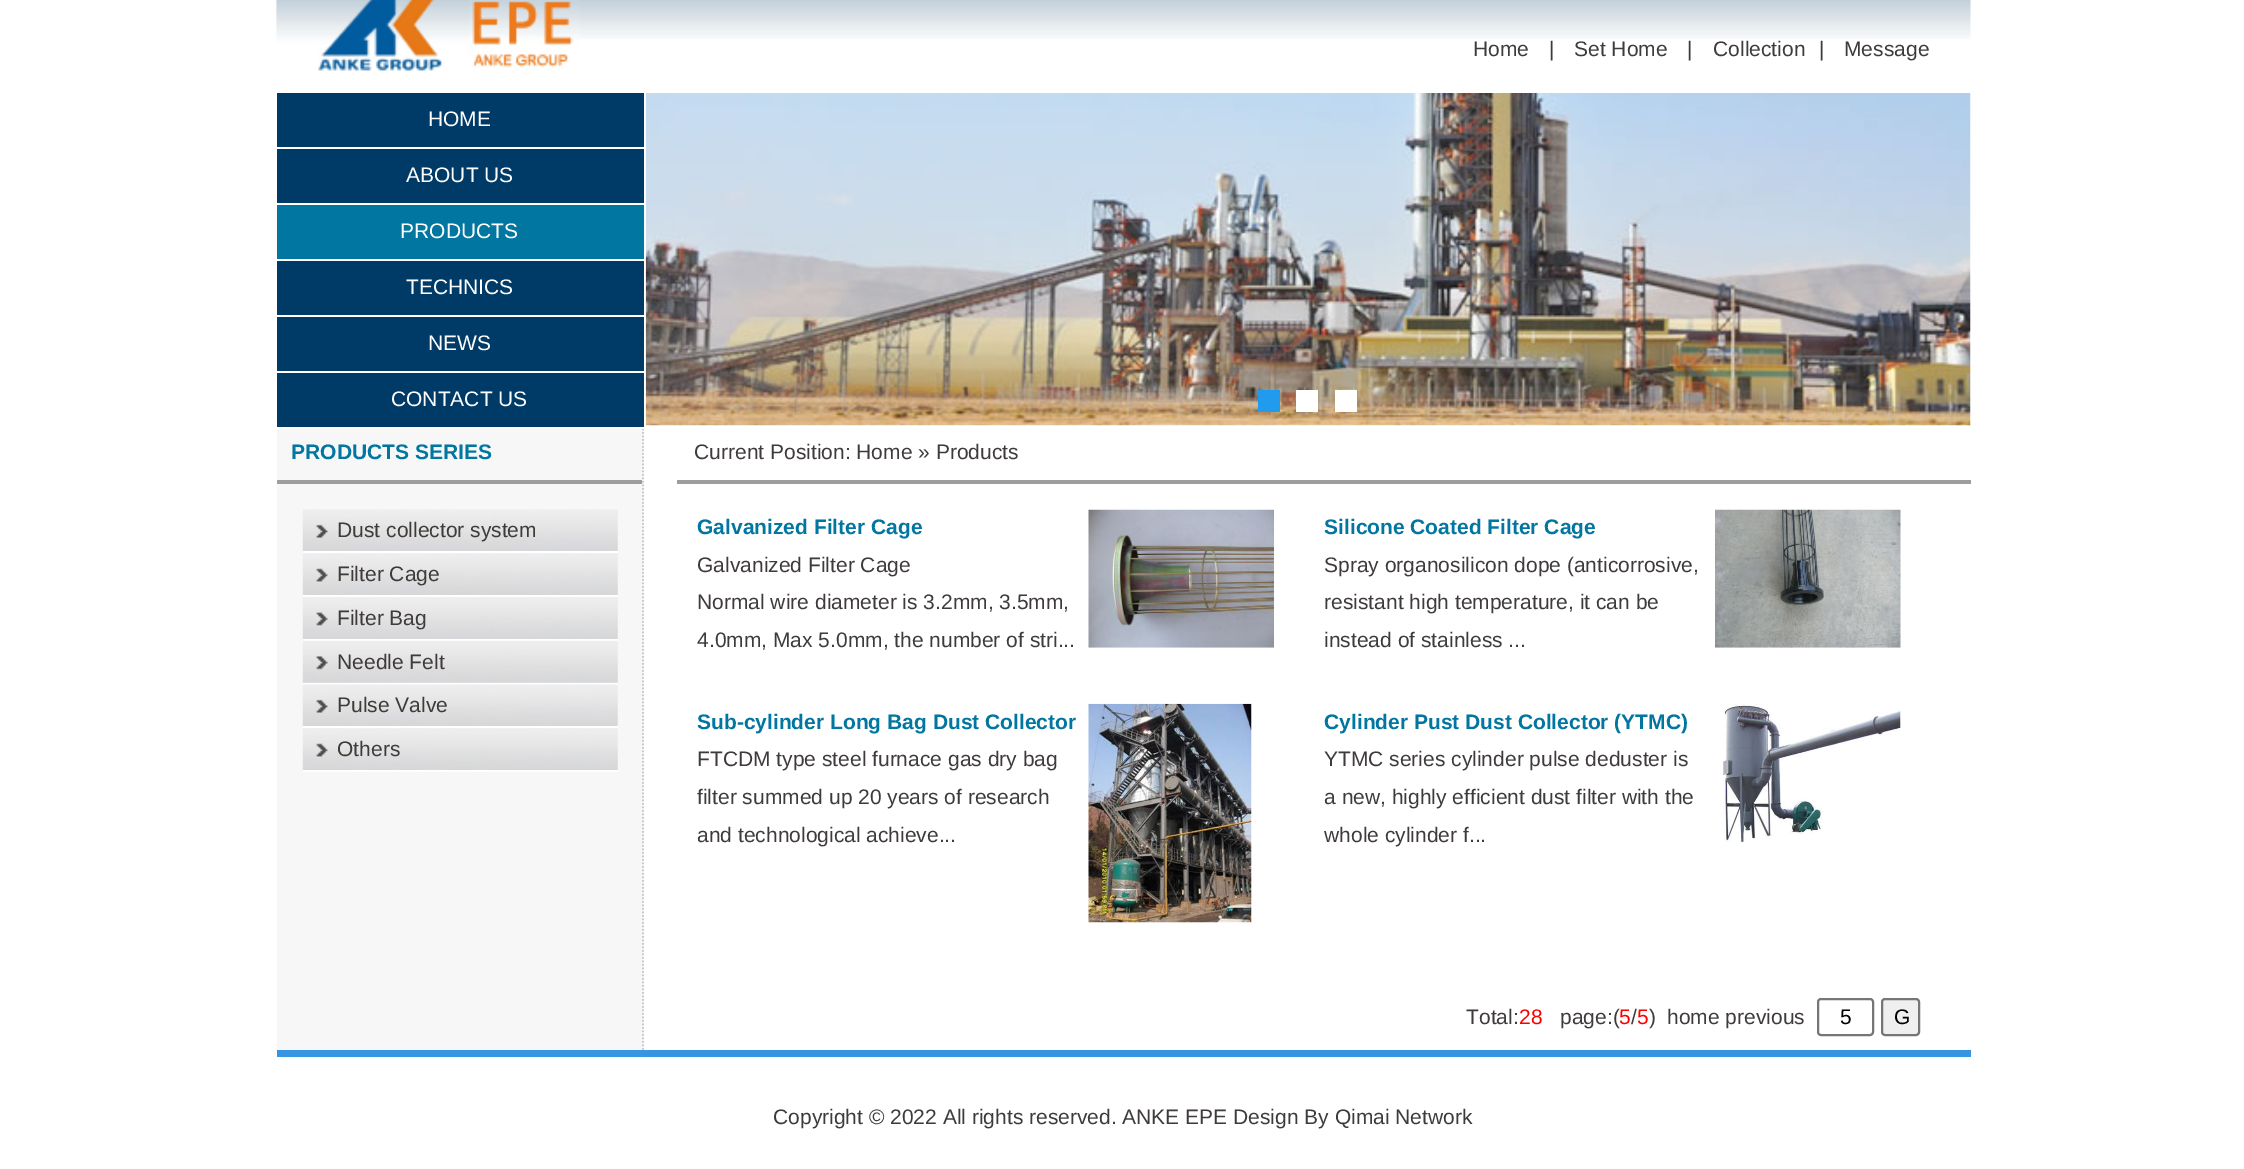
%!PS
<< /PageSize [2244 1169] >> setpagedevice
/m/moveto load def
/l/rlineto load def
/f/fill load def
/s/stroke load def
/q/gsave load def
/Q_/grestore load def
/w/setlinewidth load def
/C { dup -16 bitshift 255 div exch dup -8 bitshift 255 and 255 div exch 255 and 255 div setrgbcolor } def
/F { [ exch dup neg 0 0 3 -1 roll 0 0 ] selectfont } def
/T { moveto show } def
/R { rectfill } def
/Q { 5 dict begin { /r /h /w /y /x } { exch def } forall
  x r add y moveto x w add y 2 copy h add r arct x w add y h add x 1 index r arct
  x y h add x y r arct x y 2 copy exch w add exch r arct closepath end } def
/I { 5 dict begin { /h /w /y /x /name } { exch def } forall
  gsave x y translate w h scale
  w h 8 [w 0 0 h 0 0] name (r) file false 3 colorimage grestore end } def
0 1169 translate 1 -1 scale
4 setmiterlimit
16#FFFFFF C
0 0 2244 1169 R
(1.rgb) 276 0 1695 39 I
(2.rgb) 276 0 304 71 I
/LiberationSans-Regular 21 F
16#3F3B3B C
(Home) 1473 56 T
(|) 1549 56 T
(Set Home) 1574 56 T
(|) 1687 56 T
(Collection) 1713 56 T
(|) 1819 56 T
(Message) 1844 56 T
16#003B67 C
277 93 367 54 R
16#FFFFFF C
(HOME) 428 126 T
16#003B67 C
277 149 367 54 R
16#FFFFFF C
(ABOUT US) 406 182 T
16#0176A1 C
277 205 367 54 R
16#FFFFFF C
(PRODUCTS) 400 238 T
16#003B67 C
277 261 367 54 R
16#FFFFFF C
(TECHNICS) 406 294 T
16#003B67 C
277 317 367 54 R
16#FFFFFF C
(NEWS) 428 350 T
16#F7F7F7 C
277 429 367 621 R
16#C9C9C9 C
1.8 w
[1.75 1.75] 0 setdash
643 425 m 0 625 l s
16#003B67 C
277 373 367 54 R
16#FFFFFF C
642 428 2 1 R
(CONTACT US) 391 406 T
(3.rgb) 645 93 1326 333 I
16#219BEE C
1258 390 22 22 R
16#FFFFFF C
1296 390 22 22 R
1335 390 22 22 R
16#9D9D9D C
277 480 365 4 R
/LiberationSans-Bold 21 F
16#0076A1 C
(PRODUCTS SERIES) 291 459 T
(4.rgb) 302 509 316 43 I
16#FFFFFF C
303 551 315 2 R
/LiberationSans-Regular 21 F
16#3F3B3B C
(Dust collector system) 337 537 T
(5.rgb) 302 553 316 43 I
16#FFFFFF C
303 595 315 2 R
16#3F3B3B C
(Filter Cage) 337 581 T
(6.rgb) 302 597 316 42 I
16#FFFFFF C
303 639 315 2 R
16#3F3B3B C
(Filter Bag) 337 625 T
(7.rgb) 302 640 316 43 I
16#FFFFFF C
303 683 315 2 R
16#3F3B3B C
(Needle Felt) 337 669 T
(8.rgb) 302 684 316 43 I
16#FFFFFF C
303 726 315 2 R
16#3F3B3B C
(Pulse Valve) 337 712 T
(5.rgb) 302 728 316 43 I
16#FFFFFF C
303 770 315 2 R
16#3F3B3B C
(Others) 337 756 T
16#9D9D9D C
677 480 1294 4 R
16#3F3B3B C
(Current Position: Home » Products) 694 459 T
/LiberationSans-Bold 21 F
16#0076A1 C
(Galvanized Filter Cage) 697 534 T
(9.rgb) 1088 509 186 139 I
/LiberationSans-Regular 21 F
16#3F3B3B C
(Galvanized Filter Cage) 697 572 T
(Normal wire diameter is 3.2mm, 3.5mm,) 697 609 T
(4.0mm, Max 5.0mm, the number of stri...) 697 647 T
/LiberationSans-Bold 21 F
16#0076A1 C
(Silicone Coated Filter Cage) 1324 534 T
(10.rgb) 1715 509 186 139 I
/LiberationSans-Regular 21 F
16#3F3B3B C
(Spray organosilicon dope \(anticorrosive,) 1324 572 T
(resistant high temperature, it can be) 1324 609 T
(instead of stainless ...) 1324 647 T
/LiberationSans-Bold 21 F
16#0076A1 C
(Sub-cylinder Long Bag Dust Collector) 697 729 T
(11.rgb) 1088 703 164 220 I
/LiberationSans-Regular 21 F
16#3F3B3B C
(FTCDM type steel furnace gas dry bag) 697 766 T
(filter summed up 20 years of research) 697 804 T
(and technological achieve...) 697 842 T
/LiberationSans-Bold 21 F
16#0076A1 C
(Cylinder Pust Dust Collector \(YTMC\)) 1324 729 T
(12.rgb) 1722 704 179 138 I
/LiberationSans-Regular 21 F
16#3F3B3B C
(YTMC series cylinder pulse deduster is) 1324 766 T
(a new, highly efficient dust filter with the) 1324 804 T
(whole cylinder f...) 1324 842 T
(Total:) 1466 1024 T
16#FF0000 C
(28) 1519 1024 T
16#3F3B3B C
(page:\() 1560 1024 T
16#FF0000 C
(5 5) 1619 1024 T
16#3F3B3B C
(/) 1631 1024 T
(\)) 1649 1024 T
(home previous) 1667 1024 T
16#767676 C
2 w
[] 0 setdash
1818 999 55 36 3 Q s
16#000000 C
(5) 1840 1024 T
16#EFEFEF C
1882 999 37 36 3 Q q f Q_
16#767676 C
s
16#000000 C
(G) 1894 1024 T
16#3595E2 C
277 1050 1694 7 R
16#3F3B3B C
(Copyright © 2022 All rights reserved. ANKE EPE Design By Qimai Network) 773 1124 T
showpage
